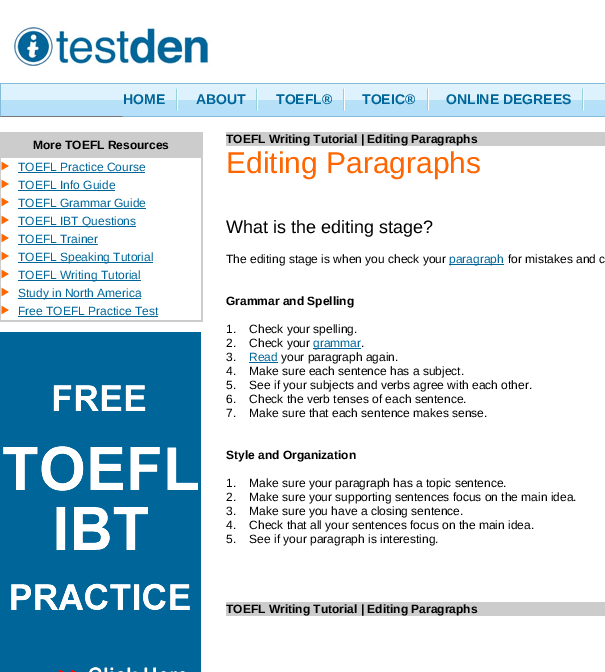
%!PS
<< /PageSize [605 672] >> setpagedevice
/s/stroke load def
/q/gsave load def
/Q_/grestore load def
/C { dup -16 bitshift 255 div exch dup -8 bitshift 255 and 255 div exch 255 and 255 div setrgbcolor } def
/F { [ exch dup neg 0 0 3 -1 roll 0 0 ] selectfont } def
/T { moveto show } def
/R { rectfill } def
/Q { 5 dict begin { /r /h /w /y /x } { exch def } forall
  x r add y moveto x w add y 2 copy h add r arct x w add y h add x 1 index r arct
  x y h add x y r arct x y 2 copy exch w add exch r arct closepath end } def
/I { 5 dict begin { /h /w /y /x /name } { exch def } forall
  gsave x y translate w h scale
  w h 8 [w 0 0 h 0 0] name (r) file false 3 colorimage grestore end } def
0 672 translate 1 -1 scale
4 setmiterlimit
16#FFFFFF C
0 0 605 672 R
(1.rgb) 0 23 605 94 I
/LiberationSans-Bold 14 F
16#006699 C
(HOME) 123 104 T
(2.rgb) 176 88 2 23 I
(ABOUT) 196 104 T
(2.rgb) 256 88 2 23 I
(TOEFL®) 276 104 T
(2.rgb) 343 88 2 23 I
(TOEIC®) 362 104 T
(2.rgb) 427 88 2 23 I
(ONLINE DEGREES) 446 104 T
(2.rgb) 582 88 2 23 I
16#CCCCCC C
0 132 203 1 R
0 132 1 190 R
1 133 200 25 R
q
0 0 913 117 rectclip
16#767676 C
.5 116.5 122 20 1.5 Q s
Q_
201 132 2 190 R
0 320 203 2 R
/LiberationSans-Bold 12 F
16#000000 C
(More TOEFL Resources) 33 149 T
(3.rgb) 1 161 8 10 I
/LiberationSans-Regular 12 F
16#006699 C
(TOEFL Practice Course) 18 171 T
18 172 127 1 R
(3.rgb) 1 179 8 10 I
(TOEFL Info Guide) 18 189 T
18 190 97 1 R
(3.rgb) 1 197 8 10 I
(TOEFL Grammar Guide) 18 207 T
18 208 128 1 R
(3.rgb) 1 215 8 10 I
18 226 118 1 R
(TOEFL IBT Questions) 18 225 T
(3.rgb) 1 233 8 10 I
(TOEFL Trainer) 18 243 T
18 244 80 1 R
(3.rgb) 1 251 8 10 I
18 262 135 1 R
(TOEFL Speaking Tutorial) 18 261 T
(3.rgb) 1 269 8 10 I
18 280 123 1 R
(TOEFL Writing Tutorial) 18 279 T
(3.rgb) 1 287 8 10 I
18 298 123 1 R
(Study in North America) 18 297 T
(3.rgb) 1 305 8 10 I
(Free TOEFL Practice Test) 18 315 T
18 316 140 1 R
(4.rgb) 0 332 201 340 I
16#CCCCCC C
226 132 379 14 R
/LiberationSans-Bold 12 F
16#000000 C
(TOEFL Writing Tutorial | Editing Paragraphs) 226 143 T
/LiberationSans-Regular 30 F
16#FF6601 C
(Editing Paragraphs) 226 173 T
/LiberationSans-Regular 18 F
16#000000 C
(What is the editing stage?) 226 233 T
/LiberationSans-Regular 12 F
(The editing stage is when you check your) 226 263 T
16#006699 C
449 264 55 1 R
(paragraph) 449 263 T
16#000000 C
(for mistakes and c) 508 263 T
/LiberationSans-Bold 12 F
(Grammar and Spelling) 226 305 T
/LiberationSans-Regular 12 F
(1.    Check your spelling.) 226 333 T
(2.    Check your) 226 347 T
16#006699 C
313 348 48 1 R
(grammar) 313 347 T
16#000000 C
(.) 361 347 T
(3.) 226 361 T
16#006699 C
(Read) 249 361 T
249 362 29 1 R
16#000000 C
(your paragraph again.) 281 361 T
(4.    Make sure each sentence has a subject.) 226 375 T
(5.    See if your subjects and verbs agree with each other.) 226 389 T
(6.    Check the verb tenses of each sentence.) 226 403 T
(7.    Make sure that each sentence makes sense.) 226 417 T
/LiberationSans-Bold 12 F
(Style and Organization) 226 459 T
/LiberationSans-Regular 12 F
(1.    Make sure your paragraph has a topic sentence.) 226 487 T
(2.    Make sure your supporting sentences focus on the main idea.) 226 501 T
(3.    Make sure you have a closing sentence.) 226 515 T
(4.    Check that all your sentences focus on the main idea.) 226 529 T
(5.    See if your paragraph is interesting.) 226 543 T
16#CCCCCC C
226 602 379 14 R
/LiberationSans-Bold 12 F
16#000000 C
(TOEFL Writing Tutorial | Editing Paragraphs) 226 613 T
showpage
